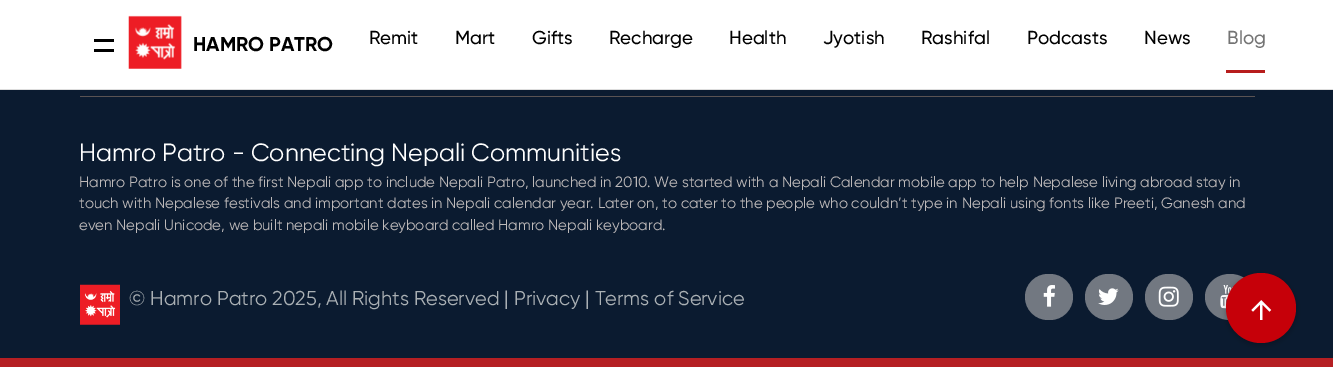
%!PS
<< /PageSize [1333 367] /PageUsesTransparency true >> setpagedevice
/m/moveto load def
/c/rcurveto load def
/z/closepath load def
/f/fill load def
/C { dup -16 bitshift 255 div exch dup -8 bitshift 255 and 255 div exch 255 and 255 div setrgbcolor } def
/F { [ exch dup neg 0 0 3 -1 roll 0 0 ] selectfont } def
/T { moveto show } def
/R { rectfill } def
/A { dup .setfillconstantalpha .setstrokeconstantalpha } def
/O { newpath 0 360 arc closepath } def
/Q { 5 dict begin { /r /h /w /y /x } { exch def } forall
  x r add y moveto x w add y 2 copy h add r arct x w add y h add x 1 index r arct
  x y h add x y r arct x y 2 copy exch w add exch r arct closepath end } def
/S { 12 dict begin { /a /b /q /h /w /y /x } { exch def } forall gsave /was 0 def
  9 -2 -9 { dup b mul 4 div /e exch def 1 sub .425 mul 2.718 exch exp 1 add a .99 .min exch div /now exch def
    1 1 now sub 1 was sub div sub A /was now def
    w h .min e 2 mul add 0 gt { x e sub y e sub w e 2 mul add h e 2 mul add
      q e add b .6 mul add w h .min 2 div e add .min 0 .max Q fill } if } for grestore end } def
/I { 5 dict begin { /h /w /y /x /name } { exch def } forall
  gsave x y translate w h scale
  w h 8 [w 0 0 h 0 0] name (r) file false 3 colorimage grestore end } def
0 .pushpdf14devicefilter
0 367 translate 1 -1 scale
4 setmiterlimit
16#0B1B30 C
0 0 1333 367 R
16#FFFFFF C
0 0 1333 89 R
16#DDDDDD C
0 89 1333 1 R
16#000000 C
94 39 20 3 R
94 49 20 3 R
(1.rgb) 128 15 54 54 I
/Gilroy-Bold 20 F
(HAMRO PATRO) 193 51 T
/Gilroy-Medium 18.75 F
(Remit) 369 44 T
(Mart) 455 44 T
(Gifts) 532 44 T
(Recharge) 609 44 T
(Health) 729 44 T
(Jyotish) 823 44 T
(Rashifal) 921 44 T
(Podcasts) 1027 44 T
(News) 1144 44 T
16#B71D1C C
1226 70 39 3 R
16#747474 C
(Blog) 1227 44 T
16#5A5353 C
80 96 1175 1 R
/Gilroy-Regular 25 F
16#FFFFFF C
(Hamro Patro - Connecting Nepali Communities) 79 161 T
/Gilroy-Regular 15 F
16#BDB9B9 C
(Hamro Patro is one of the first Nepali app to include Nepali Patro, launched in 2010. We started with a Nepali Calendar mobile app to help Nepalese living abroad stay in) 79 187 T
(touch with Nepalese festivals and important dates in Nepali calendar year. Later on, to cater to the people who couldn’t type in Nepali using fonts like Preeti, Ganesh and) 79 208 T
(even Nepali Unicode, we built nepali mobile keyboard called Hamro Nepali keyboard.) 79 230 T
(2.rgb) 80 284 40 41 I
/Gilroy-Regular 20 F
16#AAB0B4 C
(© Hamro Patro 2025, All Rights Reserved | Privacy | Terms of Service) 129 305 T
16#727881 C
1025 274 48 46 23 Q f
(3.rgb) 1043 285 12 22 I
1085 274 48 46 23 Q f
(4.rgb) 1098 288 21 17 I
1145 274 48 46 23 Q f
(5.rgb) 1158 286 21 21 I
1230 274 m 14 0 25 10.5 25 23 c 0 12.5 -11 23 -25 23 c -14 0 -25 -10.5 -25 -23 c 0 -12.5 11 -23 25 -23 c z f
(6.rgb) 1220 285 13 24 I
16#000000 C
1226 275 70 70 35 3 .26 S
16#C60009 C
1261 308 35 O f
(7.rgb) 1251 300 21 20 I
16#B51F23 C
0 358 1333 9 R
.poppdf14devicefilter showpage
